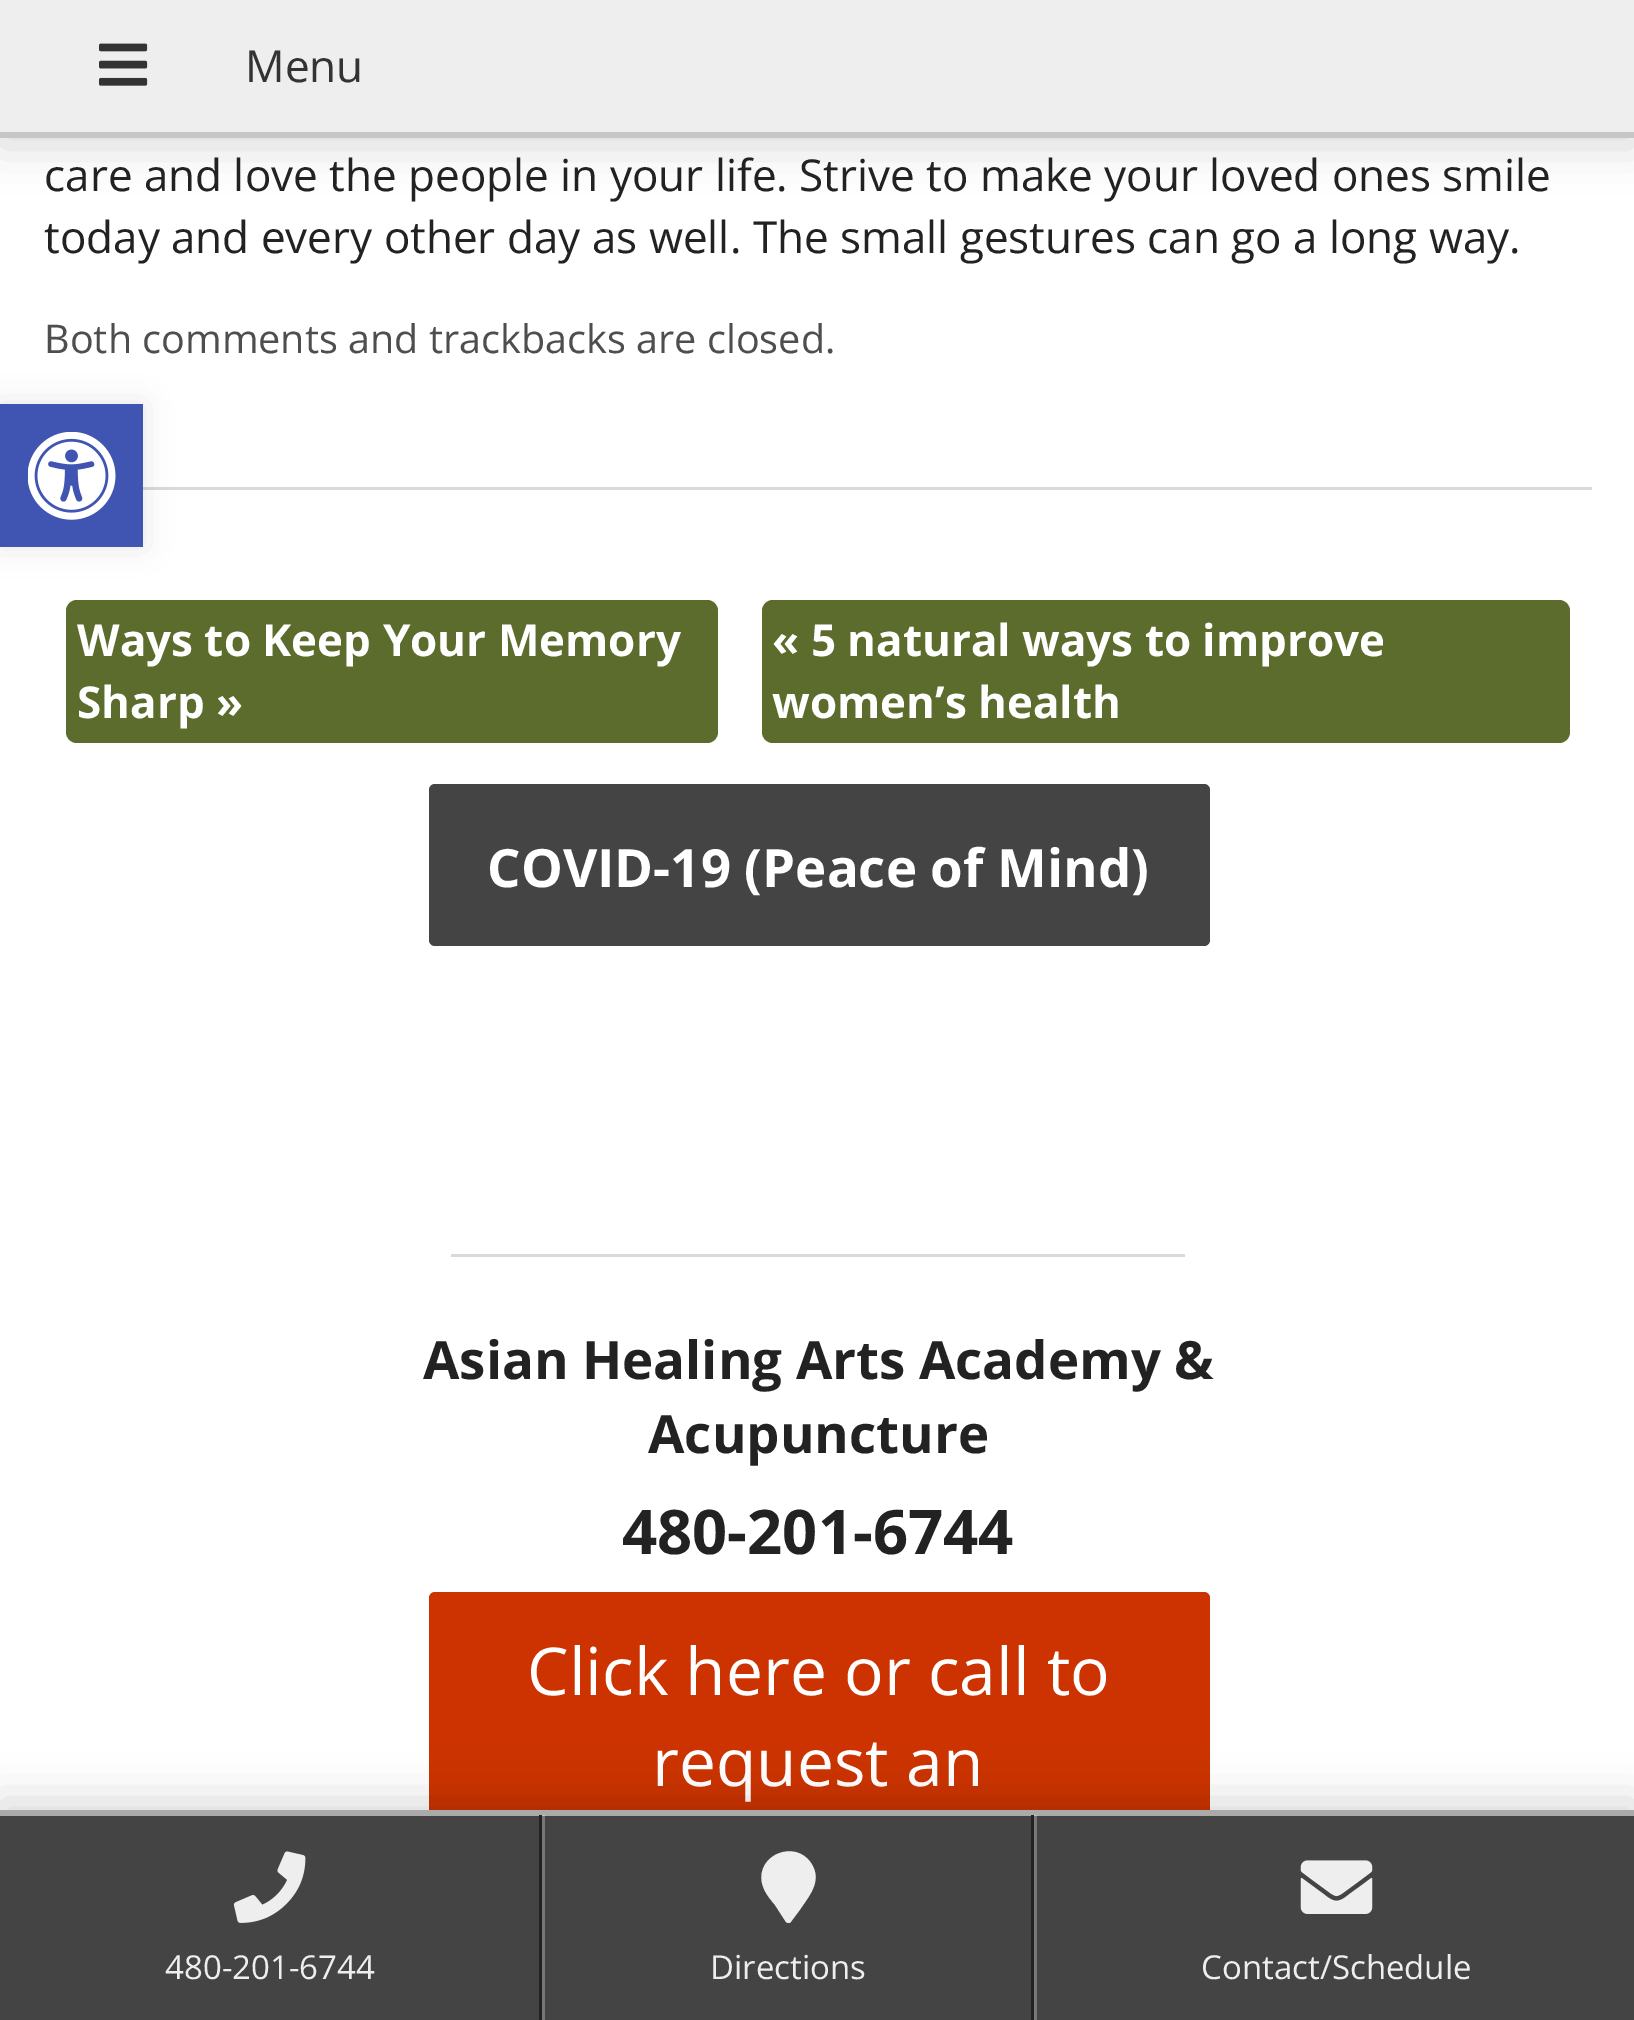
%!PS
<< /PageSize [1634 2020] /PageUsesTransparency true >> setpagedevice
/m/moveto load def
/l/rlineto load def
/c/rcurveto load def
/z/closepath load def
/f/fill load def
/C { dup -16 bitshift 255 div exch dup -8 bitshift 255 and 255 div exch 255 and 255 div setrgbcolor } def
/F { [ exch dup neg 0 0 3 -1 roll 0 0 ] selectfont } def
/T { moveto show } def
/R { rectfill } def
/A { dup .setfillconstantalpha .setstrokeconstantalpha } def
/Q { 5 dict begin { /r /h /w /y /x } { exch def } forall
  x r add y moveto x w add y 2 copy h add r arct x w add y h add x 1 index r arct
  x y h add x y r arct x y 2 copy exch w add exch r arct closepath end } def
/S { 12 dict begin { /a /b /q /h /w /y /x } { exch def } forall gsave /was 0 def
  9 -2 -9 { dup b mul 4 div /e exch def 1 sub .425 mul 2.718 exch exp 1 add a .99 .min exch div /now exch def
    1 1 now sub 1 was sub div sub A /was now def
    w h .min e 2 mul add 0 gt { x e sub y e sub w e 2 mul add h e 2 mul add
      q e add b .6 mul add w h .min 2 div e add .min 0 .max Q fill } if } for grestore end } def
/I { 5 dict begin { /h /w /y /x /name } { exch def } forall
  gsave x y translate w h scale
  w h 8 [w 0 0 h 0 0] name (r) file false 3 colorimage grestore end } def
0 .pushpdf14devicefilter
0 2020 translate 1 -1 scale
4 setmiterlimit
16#FFFFFF C
0 0 1634 2020 R
16#000000 C
0 8 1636 138 0 22 .15 S
16#EEEEEE C
0 0 1634 132 R
16#C6C6C6 C
0 132 1634 6 R
(1.rgb) 99 43 49 43 I
/OpenSans-Regular 44 F
16#333333 C
(Menu) 245 82 T
16#D9D9D9 C
143 487 1449 3 R
16#222222 C
(care and love the people in your life. Strive to make your loved ones smile) 44 191 T
(today and every other day as well. The small gestures can go a long way.) 44 253 T
/OpenSans-Regular 39.6 F
16#4E4E4E C
(Both comments and trackbacks are closed.) 44 353 T
16#5B6C2C C
66 600 652 143 11 Q f
/OpenSans-Bold 44 F
16#FFFFFF C
(Ways to Keep Your Memory) 77 656 T
(Sharp ») 77 718 T
16#5B6C2C C
762 600 808 143 11 Q f
16#FFFFFF C
(« 5 natural ways to improve) 772 656 T
(women’s health) 772 718 T
16#444444 C
429 784 781 162 6 Q f
/OpenSans-Bold 52.75 F
16#FFFFFF C
(COVID-19 \(Peace of Mind\)) 487 887 T
16#D9D9D9 C
451 1254 734 3 R
16#222222 C
(Asian Healing Arts Academy &) 423 1379 T
(Acupuncture) 648 1453 T
/OpenSans-Bold 61.5 F
(480-201-6744) 622 1554 T
16#CC3300 C
429 1592 781 339 6 Q f
/OpenSans-Regular 66 F
16#FFFFFF C
(Click here or call to) 527 1695 T
(request an) 652 1786 T
16#000000 C
0 404 143 143 0 14 .1 S
16#4054B2 C
0 404 143 143 R
(2.rgb) 28 432 88 88 I
16#000000 C
0 1801 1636 212 0 22 .15 S
16#444444 C
0 1816 1634 204 R
16#AAAAAA C
0 1810 1634 6 R
16#222222 C
539 1815 3 205 R
(3.rgb) 233 1851 73 72 I
/OpenSans-Regular 33 F
16#EEEEEE C
(480-201-6744) 165 1979 T
16#222222 C
1031 1815 3 205 R
0.27 A
16#FFFFFF C
542 1815 3 205 R
1 A
16#EEEEEE C
786 1922 m -11 -17 l -5 -6 -11 -13 -13 -22 c -6 -28 33 -44 49 -20 c 12 18 -2 33 -12 48 c -9 12 l -1 0 -3 0 -4 -1 c z f
(Directions) 710 1979 T
0.27 A
16#FFFFFF C
1034 1815 3 205 R
1 A
(4.rgb) 1300 1860 73 54 I
16#EEEEEE C
(Contact/Schedule) 1201 1979 T
.poppdf14devicefilter showpage
